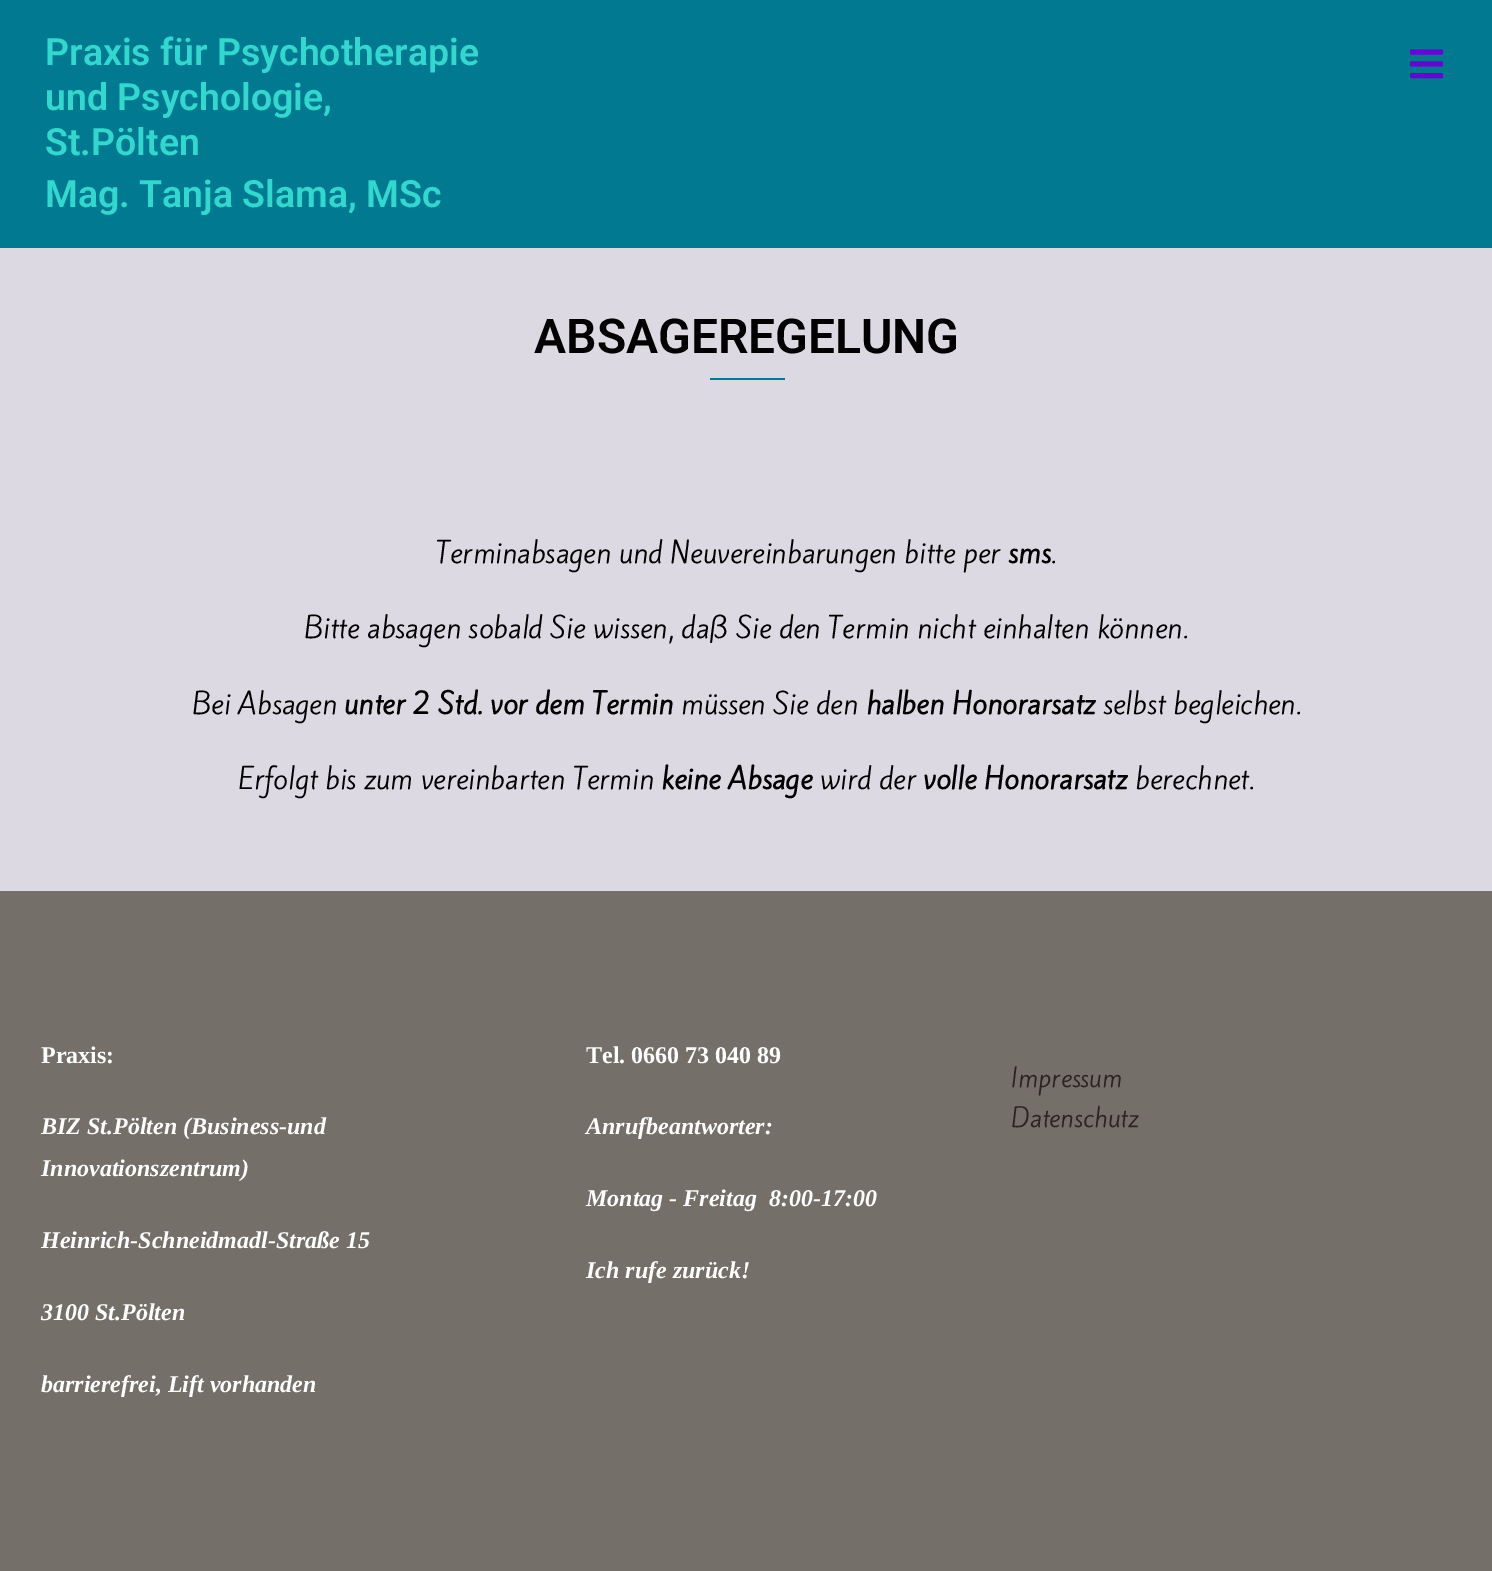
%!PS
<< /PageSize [1492 1571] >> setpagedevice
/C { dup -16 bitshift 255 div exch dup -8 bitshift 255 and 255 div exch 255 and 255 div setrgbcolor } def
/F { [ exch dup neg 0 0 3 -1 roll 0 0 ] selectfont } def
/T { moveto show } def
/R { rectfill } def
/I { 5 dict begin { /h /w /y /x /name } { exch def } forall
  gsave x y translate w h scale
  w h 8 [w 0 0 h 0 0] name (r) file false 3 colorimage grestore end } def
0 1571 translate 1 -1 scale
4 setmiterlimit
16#007991 C
0 0 1492 1571 R
/Roboto-SemiBold 37.5 F
16#31D8CD C
(Praxis für Psychotherapie) 45 65 T
(und Psychologie,) 45 110 T
(St.Pölten) 45 155 T
(Mag. Tanja Slama, MSc) 45 207 T
(1.rgb) 1410 49 33 30 I
16#DCD9E2 C
0 248 1492 643 R
/Roboto-SemiBold 48 F
16#000000 C
(ABSAGEREGELUNG) 534 353 T
16#007991 C
710 378 75 2 R
/KiteOne-Regular 27 F
16#000000 C
(Terminabsagen und Neuvereinbarungen bitte per) 436 563 T
/KiteOne-Bold 27 F
(sms) 1008 563 T
/KiteOne-Regular 27 F
(.) 1051 563 T
(Bitte absagen sobald Sie wissen, daß Sie den Termin nicht einhalten können.) 304 638 T
(Bei Absagen) 192 714 T
/KiteOne-Bold 27 F
(unter 2 Std. vor dem Termin) 344 714 T
/KiteOne-Regular 27 F
(müssen Sie den) 681 714 T
/KiteOne-Bold 27 F
(halben Honorarsatz) 866 714 T
/KiteOne-Regular 27 F
(selbst begleichen.) 1103 714 T
(Erfolgt bis zum vereinbarten Termin) 238 789 T
/KiteOne-Bold 27 F
(keine Absage) 661 789 T
/KiteOne-Regular 27 F
(wird der) 820 789 T
/KiteOne-Bold 27 F
(volle Honorarsatz) 923 789 T
/KiteOne-Regular 27 F
(berechnet.) 1135 789 T
16#756F6A C
0 891 1492 680 R
/LiberationSerif-Bold 24 F
16#FFFFFF C
(Praxis:) 41 1063 T
/LiberationSerif-BoldItalic 24 F
(BIZ St.Pölten \(Business-und) 41 1134 T
(Innovationszentrum\)) 41 1176 T
(Heinrich-Schneidmadl-Straße 15) 41 1248 T
(3100 St.Pölten) 41 1320 T
(barrierefrei, Lift vorhanden) 41 1392 T
/LiberationSerif-Bold 24 F
(Tel. 0660 73 040 89) 586 1063 T
/LiberationSerif-BoldItalic 24 F
(Anrufbeantworter:) 586 1134 T
(Montag - Freitag  8:00-17:00) 586 1206 T
(Ich rufe zurück!) 586 1278 T
/KiteOne-Regular 24 F
16#2B2423 C
(Impressum) 1011 1087 T
(Datenschutz) 1011 1127 T
showpage
